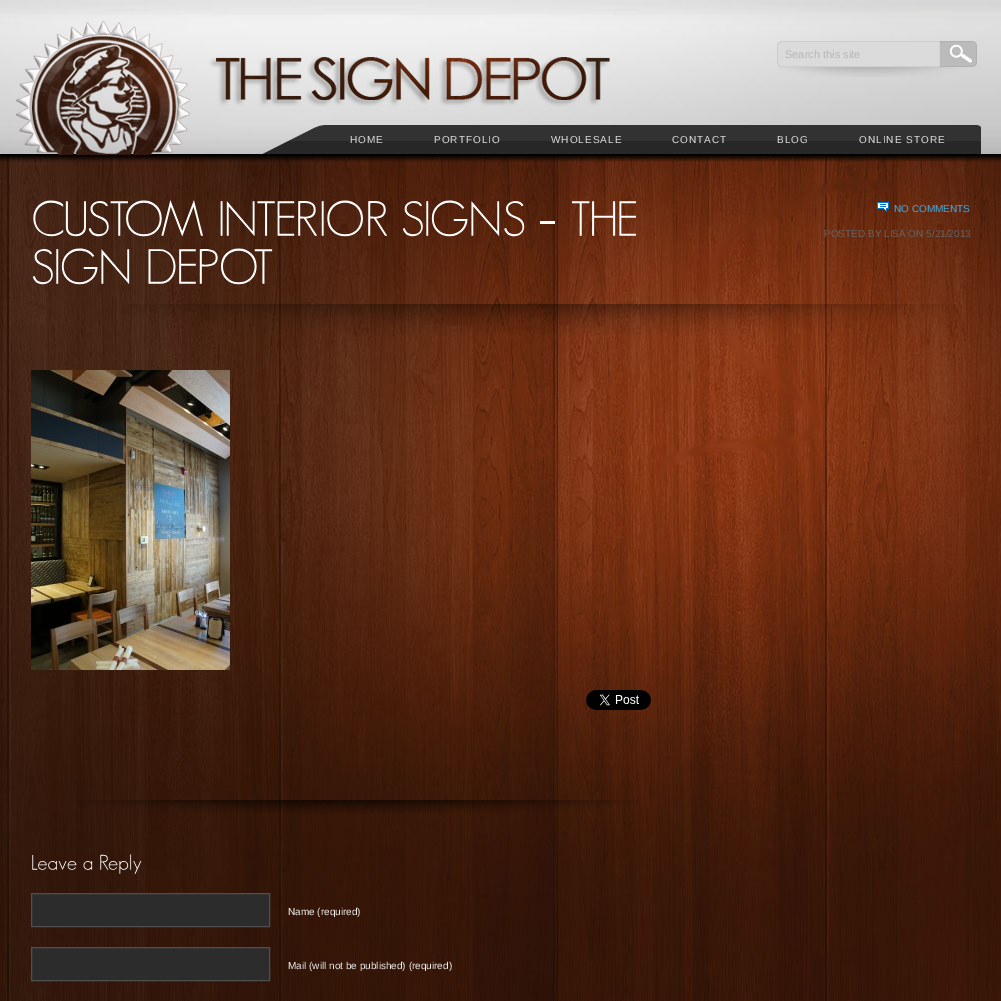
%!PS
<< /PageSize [1001 1001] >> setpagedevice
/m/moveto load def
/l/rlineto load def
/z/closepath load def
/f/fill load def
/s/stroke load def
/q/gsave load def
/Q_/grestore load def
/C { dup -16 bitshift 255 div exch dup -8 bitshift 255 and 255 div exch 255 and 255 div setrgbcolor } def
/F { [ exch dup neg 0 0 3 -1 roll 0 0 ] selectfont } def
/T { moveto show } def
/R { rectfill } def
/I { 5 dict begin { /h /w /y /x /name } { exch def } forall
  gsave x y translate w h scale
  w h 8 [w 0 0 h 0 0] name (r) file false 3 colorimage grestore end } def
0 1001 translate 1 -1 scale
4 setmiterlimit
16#FFFFFF C
0 0 1001 1001 R
(1.rgb) 0 155 1001 846 I
(2.rgb) 0 0 1001 162 I
(3.rgb) 16 21 594 134 I
(4.rgb) 777 41 200 36 I
/LiberationSans-Regular 11 F
16#B7B7B7 C
(Search this site) 785 58 T
(5.rgb) 943 42 31 24 I
(6.rgb) 262 125 63 29 I
(7.rgb) 325 125 646 29 I
/LiberationSans-Regular 10 F
16#DBDBDB C
350 143 m 1 0 (HOME) ashow
434 143 m 1 0 (PORTFOLIO) ashow
551 143 m 1 0 (WHOLESALE) ashow
672 143 m 1 0 (CONTACT) ashow
777 143 m 1 0 (BLOG) ashow
859 143 m 1 0 (ONLINE STORE) ashow
(8.rgb) 971 125 10 29 I
(9.rgb) 33 200 170 37 I
(10.rgb) 220 200 168 37 I
(11.rgb) 402 200 123 37 I
16#FFFFFF C
540 221 15 3 R
(12.rgb) 572 201 64 35 I
(13.rgb) 32 248 98 37 I
(14.rgb) 148 248 125 37 I
(15.rgb) 877 202 12 10 I
16#40A9E0 C
(NO COMMENTS) 894 212 T
16#646464 C
(POSTED BY LISA ON 5/21/2013) 824 237 T
(16.rgb) 125 304 833 31 I
(17.rgb) 31 370 199 300 I
(18.rgb) 586 690 65 20 I
(19.rgb) 79 800 560 14 I
(20.rgb) 32 855 45 15 I
(21.rgb) 83 861 10 9 I
(22.rgb) 100 854 42 20 I
16#2C2C2C C
31.5 893.5 m 238 0 l 0 33 l -238 0 l z q f Q_
16#4F4F4F C
s
16#EEEEEE C
(Name \(required\)) 288 915 T
16#2C2C2C C
31.5 947.5 m 238 0 l 0 33 l -238 0 l z q f Q_
16#4F4F4F C
s
16#EEEEEE C
(Mail \(will not be published\) \(required\)) 288 969 T
showpage
